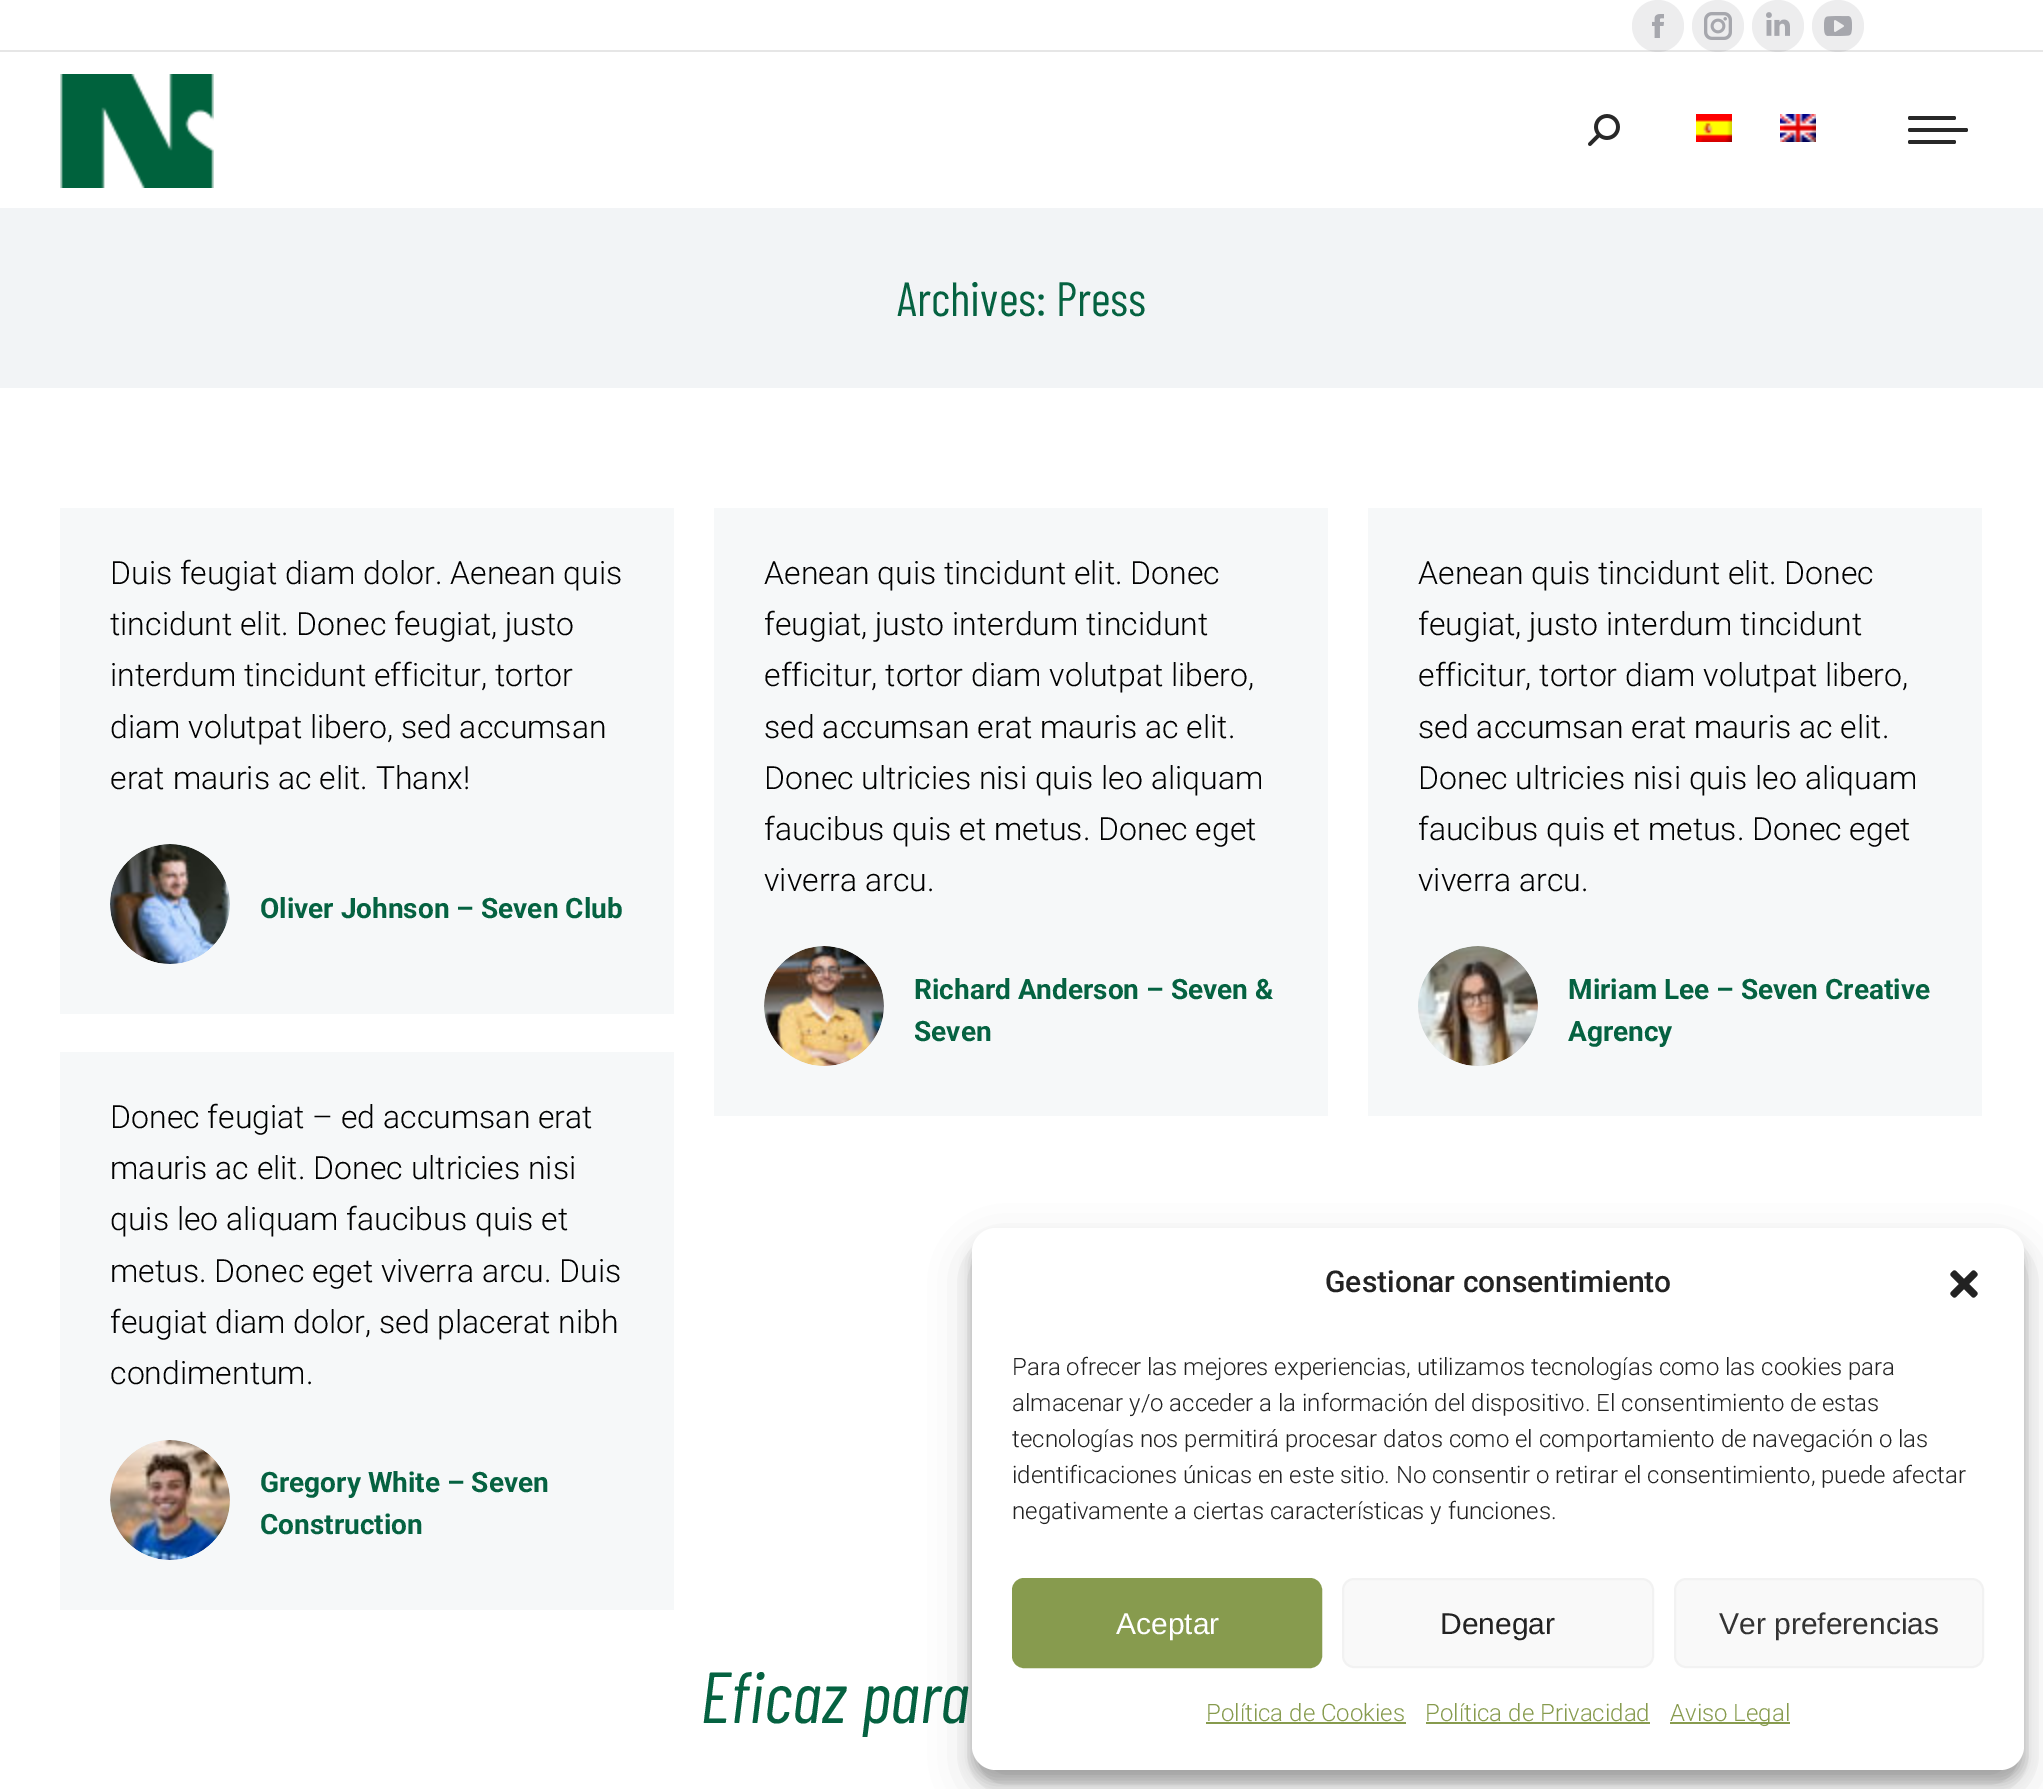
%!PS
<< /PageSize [2043 1789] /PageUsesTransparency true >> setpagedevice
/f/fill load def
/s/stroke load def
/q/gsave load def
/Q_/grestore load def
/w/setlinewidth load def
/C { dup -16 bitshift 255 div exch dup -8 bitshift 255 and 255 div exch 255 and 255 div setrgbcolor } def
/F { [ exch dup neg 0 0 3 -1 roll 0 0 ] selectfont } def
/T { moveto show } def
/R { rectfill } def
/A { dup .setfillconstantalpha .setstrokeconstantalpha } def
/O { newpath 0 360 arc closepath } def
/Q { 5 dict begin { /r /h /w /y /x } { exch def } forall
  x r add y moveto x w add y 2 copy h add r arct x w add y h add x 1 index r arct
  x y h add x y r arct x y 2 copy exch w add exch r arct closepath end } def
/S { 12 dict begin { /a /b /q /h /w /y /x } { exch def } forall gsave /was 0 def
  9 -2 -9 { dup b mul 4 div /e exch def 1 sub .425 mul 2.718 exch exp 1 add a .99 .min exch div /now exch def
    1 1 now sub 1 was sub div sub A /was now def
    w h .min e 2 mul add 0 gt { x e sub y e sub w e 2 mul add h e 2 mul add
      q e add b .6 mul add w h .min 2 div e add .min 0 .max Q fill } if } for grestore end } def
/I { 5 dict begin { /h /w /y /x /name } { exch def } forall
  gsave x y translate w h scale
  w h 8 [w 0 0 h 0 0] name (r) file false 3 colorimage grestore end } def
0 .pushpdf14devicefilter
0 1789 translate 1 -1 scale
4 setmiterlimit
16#FFFFFF C
0 0 2043 1789 R
16#EDEDEE C
1658 26 26 O f
(1.rgb) 1652 14 12 24 I
1718 26 26 O f
(2.rgb) 1704 12 28 28 I
1778 26 26 O f
(3.rgb) 1766 12 24 24 I
1838 26 26 O f
(4.rgb) 1824 16 28 20 I
0.12 A
16#333333 C
0 50 2043 2 R
1 A
(5.rgb) 60 74 154 114 I
(6.rgb) 1588 114 32 32 I
(7.rgb) 1696 114 36 28 I
(8.rgb) 1780 114 36 28 I
16#282828 C
1908 116 48 4 2 Q f
1908 128 60 4 2 Q f
1908 140 48 4 2 Q f
16#F2F4F6 C
0 208 2043 180 R
/BarlowCondensed-Regular 48 F
16#056241 C
(Archives: Press) 897 316 T
16#F6F8F9 C
60 508 614 506 R
/Roboto-Light 32 F
16#000000 C
(Duis feugiat diam dolor. Aenean quis) 110 584 T
(tincidunt elit. Donec feugiat, justo) 110 635 T
(interdum tincidunt efficitur, tortor) 110 686 T
(diam volutpat libero, sed accumsan) 110 738 T
(erat mauris ac elit. Thanx!) 110 789 T
16#EAECED C
170 904 60 O f
(9.rgb) 110 844 120 120 I
/Roboto-Bold 28 F
16#056241 C
(Oliver Johnson – Seven Club) 260 918 T
16#F6F8F9 C
714 508 614 608 R
/Roboto-Light 32 F
16#000000 C
(Aenean quis tincidunt elit. Donec) 764 584 T
(feugiat, justo interdum tincidunt) 764 635 T
(efficitur, tortor diam volutpat libero,) 764 686 T
(sed accumsan erat mauris ac elit.) 764 738 T
(Donec ultricies nisi quis leo aliquam) 764 789 T
(faucibus quis et metus. Donec eget) 764 840 T
(viverra arcu.) 764 891 T
16#EAECED C
824 1006 60 O f
(10.rgb) 764 946 120 120 I
/Roboto-Bold 28 F
16#056241 C
(Richard Anderson – Seven &) 914 999 T
(Seven) 914 1041 T
16#F6F8F9 C
1368 508 614 608 R
/Roboto-Light 32 F
16#000000 C
(Aenean quis tincidunt elit. Donec) 1418 584 T
(feugiat, justo interdum tincidunt) 1418 635 T
(efficitur, tortor diam volutpat libero,) 1418 686 T
(sed accumsan erat mauris ac elit.) 1418 738 T
(Donec ultricies nisi quis leo aliquam) 1418 789 T
(faucibus quis et metus. Donec eget) 1418 840 T
(viverra arcu.) 1418 891 T
16#EAECED C
1478 1006 60 O f
(11.rgb) 1418 946 120 120 I
/Roboto-Bold 28 F
16#056241 C
(Miriam Lee – Seven Creative) 1568 999 T
(Agrency) 1568 1041 T
16#F6F8F9 C
60 1052 614 558 R
/Roboto-Light 32 F
16#000000 C
(Donec feugiat – ed accumsan erat) 110 1128 T
(mauris ac elit. Donec ultricies nisi) 110 1179 T
(quis leo aliquam faucibus quis et) 110 1230 T
(metus. Donec eget viverra arcu. Duis) 110 1282 T
(feugiat diam dolor, sed placerat nibh) 110 1333 T
(condimentum.) 110 1384 T
16#EAECED C
170 1500 60 O f
(12.rgb) 110 1440 120 120 I
/Roboto-Bold 28 F
16#056241 C
(Gregory White – Seven) 260 1492 T
(Construction) 260 1534 T
/BarlowCondensed-Italic 72 F
(Eficaz para) 700 1723 T
16#000000 C
972 1240 1052 542 24 6 .23 S
972 1248 1052 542 24 20 .19 S
16#FFFFFF C
972 1228 1052 542 24 Q f
/Roboto-Medium 30 F
16#222222 C
(Gestionar consentimiento) 1325 1292 T
(13.rgb) 1950 1270 28 28 I
/Roboto-Light 24 F
(Para ofrecer las mejores experiencias, utilizamos tecnologías como las cookies para) 1012 1375 T
(almacenar y/o acceder a la información del dispositivo. El consentimiento de estas) 1012 1411 T
(tecnologías nos permitirá procesar datos como el comportamiento de navegación o las) 1012 1447 T
(identificaciones únicas en este sitio. No consentir o retirar el consentimiento, puede afectar) 1012 1483 T
(negativamente a ciertas características y funciones.) 1012 1519 T
16#879B4E C
1013 1579 308 88 11 Q q f Q_
2 w
s
/LiberationSans-Regular 30 F
16#FFFFFF C
(Aceptar) 1116 1634 T
16#F9F9F9 C
1343 1579 310 88 11 Q q f Q_
16#F2F2F2 C
s
16#222222 C
(Denegar) 1440 1634 T
16#F9F9F9 C
1675 1579 308 88 11 Q q f Q_
16#F2F2F2 C
s
16#333333 C
(Ver preferencias) 1719 1634 T
/Roboto-Light 24 F
16#879B4E C
(Política de Cookies) 1206 1721 T
1206 1722 200 2 R
(Política de Privacidad) 1425 1721 T
1426 1722 224 2 R
1670 1722 120 2 R
(Aviso Legal) 1670 1721 T
.poppdf14devicefilter showpage
